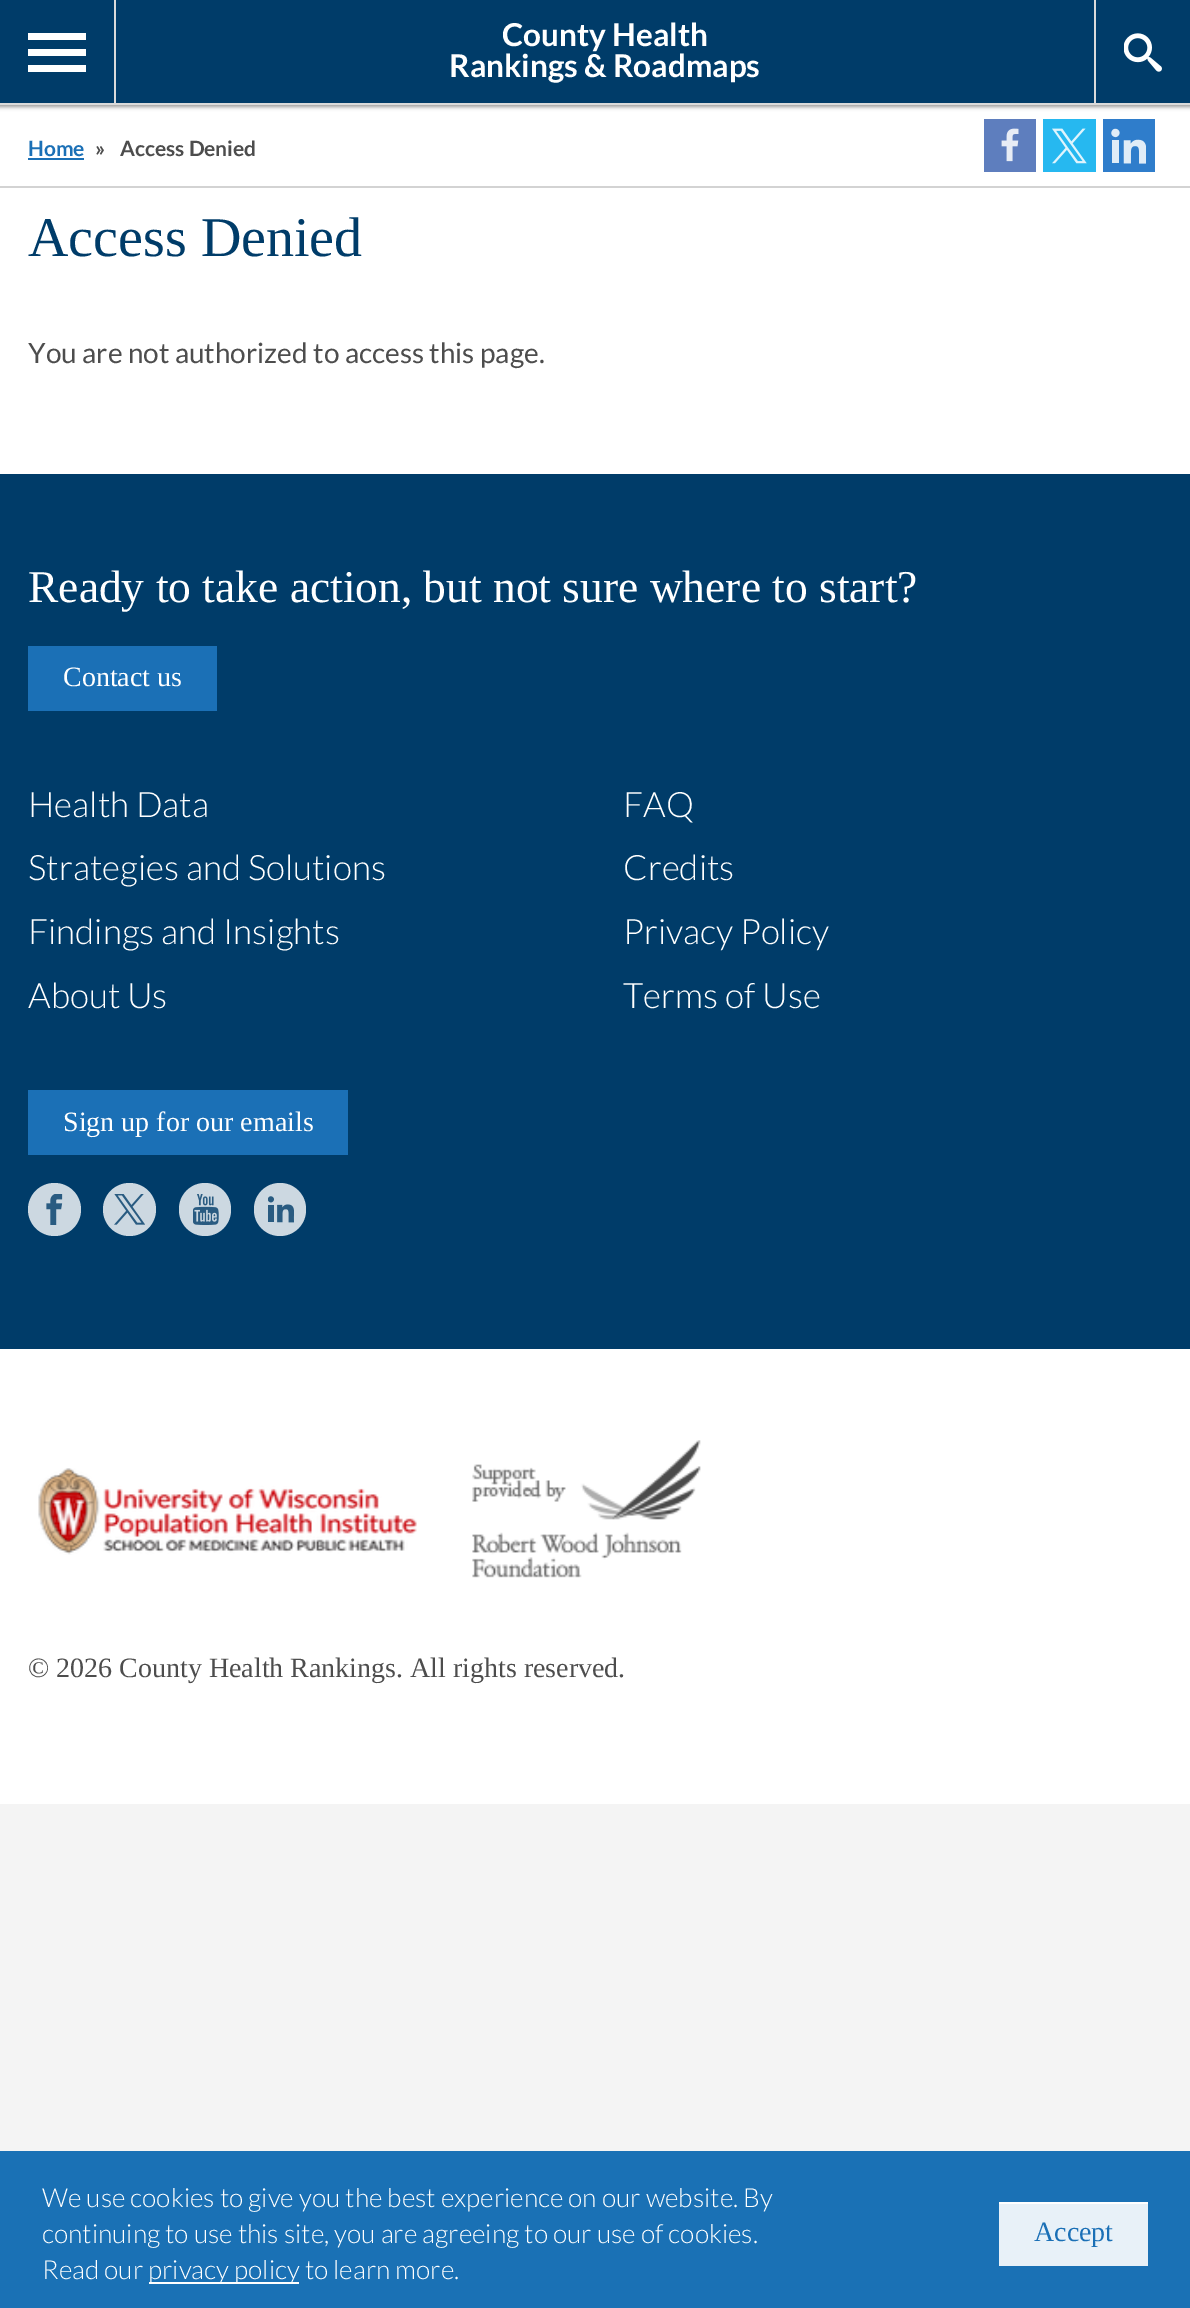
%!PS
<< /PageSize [1190 2308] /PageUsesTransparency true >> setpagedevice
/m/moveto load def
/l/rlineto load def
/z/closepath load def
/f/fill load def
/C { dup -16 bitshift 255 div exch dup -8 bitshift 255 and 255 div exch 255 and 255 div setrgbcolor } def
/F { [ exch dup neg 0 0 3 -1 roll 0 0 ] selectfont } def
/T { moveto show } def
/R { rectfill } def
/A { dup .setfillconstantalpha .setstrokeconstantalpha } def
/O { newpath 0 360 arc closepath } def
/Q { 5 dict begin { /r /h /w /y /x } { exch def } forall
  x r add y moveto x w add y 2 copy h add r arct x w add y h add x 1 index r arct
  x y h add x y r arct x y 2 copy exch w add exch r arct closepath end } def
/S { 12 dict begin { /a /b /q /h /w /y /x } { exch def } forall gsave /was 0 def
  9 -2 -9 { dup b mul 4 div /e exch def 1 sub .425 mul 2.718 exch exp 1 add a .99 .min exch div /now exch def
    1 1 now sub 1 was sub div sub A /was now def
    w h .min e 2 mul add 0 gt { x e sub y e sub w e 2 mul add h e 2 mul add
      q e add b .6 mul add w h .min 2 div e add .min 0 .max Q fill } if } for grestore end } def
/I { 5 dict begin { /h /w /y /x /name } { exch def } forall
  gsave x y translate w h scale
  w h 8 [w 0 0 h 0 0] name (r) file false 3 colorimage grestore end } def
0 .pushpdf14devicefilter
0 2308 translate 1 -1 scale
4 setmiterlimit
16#F4F4F4 C
0 0 1190 2308 R
16#FFFFFF C
0 105 1190 1699 R
16#000000 C
-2 -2 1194 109 0 2 .4 S
16#003C69 C
0 0 1190 103 R
16#DADADA C
0 103 1190 2 R
114 0 2 105 R
16#FFFFFF C
28 72 m 58 0 l 0 -7 l -58 0 l z 28 56 m 58 0 l 0 -7 l -58 0 l z 28 33 m 0 7 l 58 0 l 0 -7 l z f
/Lato-Bold 31.5 F
(County Health) 502 46 T
(Rankings & Roadmaps) 449 77 T
16#DADADA C
1094 0 2 105 R
(1.rgb) 1124 33 38 39 I
16#D3D3D3 C
0 186 1190 2 R
/Lato-Bold 21 F
16#1B70B6 C
(Home) 28 156 T
28 158 56 2 R
16#4D4D4D C
(») 95 156 T
(Access Denied) 120 156 T
16#5E7EBE C
984 119 52 53 R
(2.rgb) 1001 128 18 34 I
16#26B8F0 C
1043 119 53 53 R
(3.rgb) 1052 128 35 36 I
16#2F7DCB C
1103 119 52 53 R
(4.rgb) 1111 128 35 36 I
/LiberationSerif-Regular 56 F
16#003C69 C
(Access Denied) 28 256 T
/Lato-Regular 28 F
16#4D4D4D C
(You are not authorized to access this page.) 28 363 T
16#003C69 C
0 474 1190 875 R
/LiberationSerif-Regular 45.5 F
16#FFFFFF C
(Ready to take action, but not sure where to start?) 28 602 T
16#1B70B6 C
28 646 189 65 R
/LiberationSerif-Regular 28 F
16#FFFFFF C
(Contact us) 63 686 T
/Lato-Light 35 F
(Health Data) 28 817 T
(FAQ) 623 817 T
(Strategies and Solutions) 28 880 T
(Credits) 623 880 T
(Findings and Insights) 28 944 T
(Privacy Policy) 623 944 T
(About Us) 28 1008 T
(Terms of Use) 623 1008 T
16#1B70B6 C
28 1090 320 65 R
/LiberationSerif-Regular 28 F
16#FFFFFF C
(Sign up for our emails) 63 1131 T
16#CCD8E1 C
54.5 1209.5 26.5 O f
(5.rgb) 46 1194 17 31 I
129.5 1209.5 26.5 O f
(6.rgb) 114 1194 31 31 I
179 1183 52 53 26 Q f
(7.rgb) 193 1194 26 31 I
254 1183 52 53 26 Q f
(8.rgb) 268 1196 26 27 I
(9.rgb) 38 1468 379 87 I
(10.rgb) 472 1440 229 138 I
16#4D4D4D C
(© 2026 County Health Rankings. All rights reserved.) 28 1677 T
16#1A71B5 C
0 2151 1190 157 R
/Lato-Light 26.25 F
16#FFFFFF C
(We use cookies to give you the best experience on our website. By) 42 2207 T
(continuing to use this site, you are agreeing to our use of cookies.) 42 2243 T
(Read our) 42 2279 T
149 2282 150 2 R
(privacy policy to learn more.) 148 2279 T
16#E8F1F8 C
999 2204 149 62 R
16#FFFFFF C
999 2202 149 2 R
/LiberationSerif-Regular 28 F
16#1B70B6 C
(Accept) 1034 2241 T
.poppdf14devicefilter showpage
